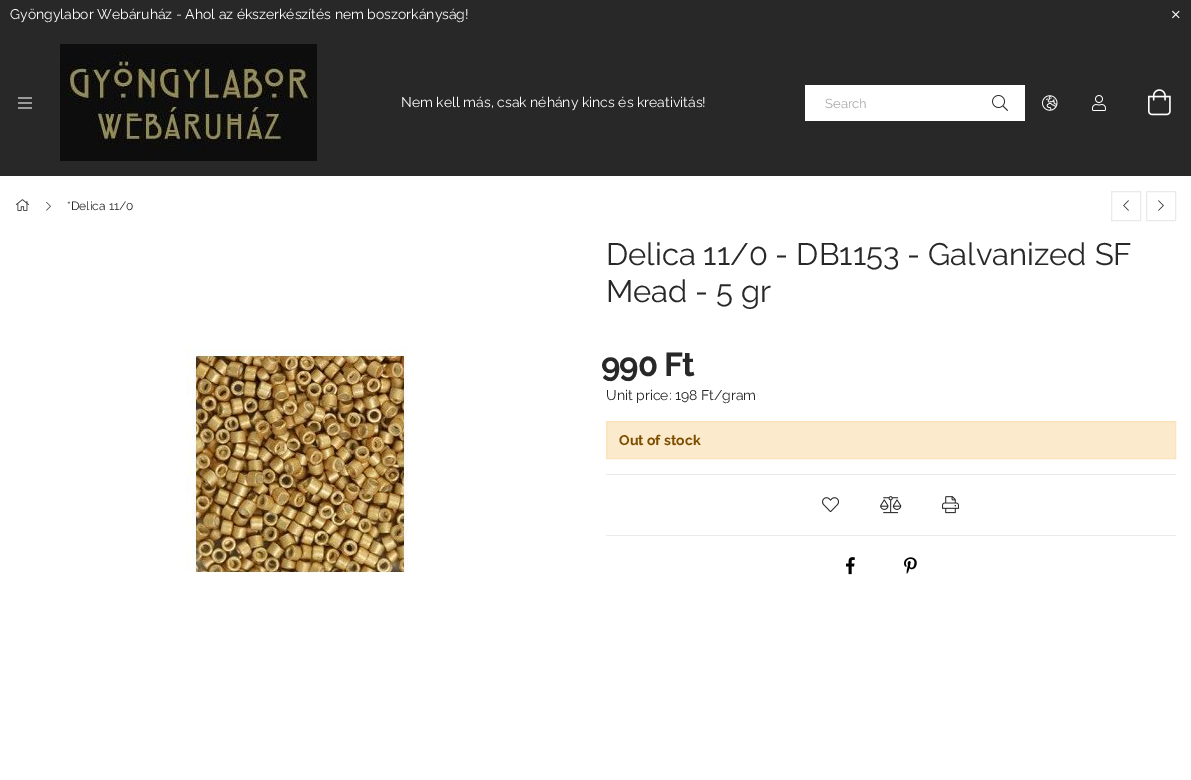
%!PS
<< /PageSize [1191 780] >> setpagedevice
/m/moveto load def
/l/rlineto load def
/z/closepath load def
/f/fill load def
/s/stroke load def
/q/gsave load def
/Q_/grestore load def
/C { dup -16 bitshift 255 div exch dup -8 bitshift 255 and 255 div exch 255 and 255 div setrgbcolor } def
/F { [ exch dup neg 0 0 3 -1 roll 0 0 ] selectfont } def
/T { moveto show } def
/R { rectfill } def
/I { 5 dict begin { /h /w /y /x /name } { exch def } forall
  gsave x y translate w h scale
  w h 8 [w 0 0 h 0 0] name (r) file false 3 colorimage grestore end } def
0 780 translate 1 -1 scale
4 setmiterlimit
16#FFFFFF C
0 0 1191 780 R
16#282828 C
0 0 1191 176 R
/Raleway-Regular 14 F
16#FFFFFF C
(Gyöngylabor Webáruház - Ahol az ékszerkészítés nem boszorkányság!) 10 19 T
(1.rgb) 1172 10 8 9 I
(2.rgb) 18 97 14 12 I
(3.rgb) 60 44 257 117 I
(Nem kell más, csak néhány kincs és kreativitás!) 401 107 T
805 85 220 36 R
/Raleway-Regular 13 F
16#AAAAAA C
(Search) 825 108 T
(4.rgb) 992 95 16 16 I
(5.rgb) 1042 95 16 16 I
(6.rgb) 1092 95 14 16 I
(7.rgb) 1148 89 23 27 I
(8.rgb) 15 199 14 12 I
(9.rgb) 46 201 5 10 I
/Raleway-Regular 12 F
16#282828 C
(*Delica 11/0) 67 210 T
16#EAEAEA C
1111.5 191.5 29 29 rectstroke
(10.rgb) 1123 200 6 11 I
1146.5 191.5 29 29 rectstroke
(11.rgb) 1158 200 6 11 I
(12.rgb) 186 348 222 225 I
/Raleway-Regular 31 F
16#282828 C
(Delica 11/0 - DB1153 - Galvanized SF) 606 265 T
(Mead - 5 gr) 606 302 T
/Raleway-Bold 33 F
601 376 m -1 0 (990 Ft) ashow
/Raleway-Regular 14 F
(Unit price: 198 Ft/gram) 606 400 T
16#FCEACC C
606.5 421.5 m 569 0 l 0 37 l -569 0 l z q f Q_
16#FBE2B8 C
s
/Raleway-Bold 14 F
16#7E4E00 C
(Out of stock) 619 445 T
16#EAEAEA C
606 474 570 1 R
(13.rgb) 822 497 17 15 I
(14.rgb) 880 496 22 18 I
(15.rgb) 942 496 17 18 I
606 535 570 1 R
(16.rgb) 846 557 9 18 I
(17.rgb) 904 557 13 17 I
showpage
